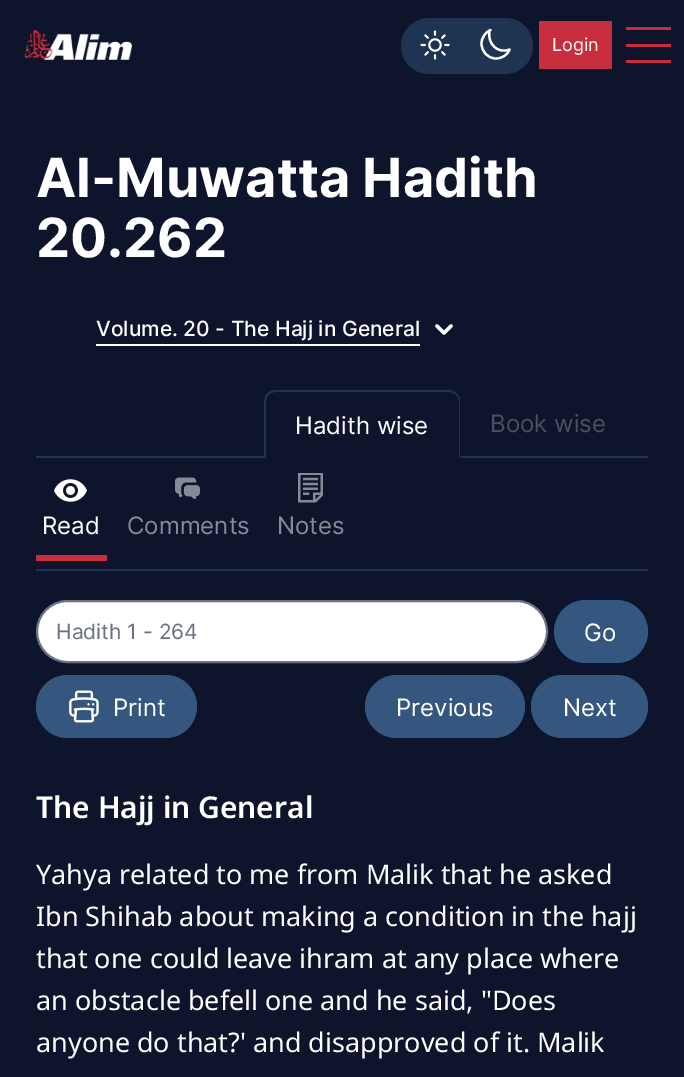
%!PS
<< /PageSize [684 1077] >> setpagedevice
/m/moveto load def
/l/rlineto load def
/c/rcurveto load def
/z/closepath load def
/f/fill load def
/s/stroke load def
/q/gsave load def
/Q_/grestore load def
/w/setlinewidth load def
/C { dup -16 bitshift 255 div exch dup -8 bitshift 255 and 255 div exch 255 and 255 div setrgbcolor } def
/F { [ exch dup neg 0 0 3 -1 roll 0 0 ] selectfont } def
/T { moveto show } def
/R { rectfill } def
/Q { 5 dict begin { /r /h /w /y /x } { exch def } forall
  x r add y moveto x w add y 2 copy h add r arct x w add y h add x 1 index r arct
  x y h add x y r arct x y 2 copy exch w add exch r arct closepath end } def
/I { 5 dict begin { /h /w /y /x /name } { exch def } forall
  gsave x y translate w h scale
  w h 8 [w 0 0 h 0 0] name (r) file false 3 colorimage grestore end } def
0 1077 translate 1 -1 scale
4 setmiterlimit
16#0D142C C
0 0 684 1077 R
(1.rgb) 24 30 108 30 I
16#1F3352 C
401 18 132 56 28 Q f
(2.rgb) 420 30 30 30 I
16#FFFFFF C
2.2 w
1 setlinecap
1 setlinejoin
509.5 49.5 m -12 5 -22.5 -6.5 -20 -18.5 c 1 -1 l -5.5 2.5 -9 8 -9 13.5 c 0 8.5 6.5 15 14.5 15 c 6 0 11.5 -3.5 13.5 -9 c z s
16#C72D3C C
539 21 73 48 R
/Inter-Regular 18 F
16#FFFFFF C
(Login) 552 51 T
16#C72D3C C
626 27 45 3 R
626 44 45 3 R
626 60 45 3 R
/Inter-Bold 54 F
16#FFFFFF C
(Al-Muwatta Hadith) 36 197 T
(20.262) 36 257 T
96 344 324 2 R
/Inter-Medium 21 F
(Volume. 20 - The Hajj in General) 96 336 T
3.4 w
437 326 m 7 7 l 7 -7 l s
16#1F3352 C
276 390 m 172 0 l 7 0 12 5 12 12 c 0 56 l -196 0 l 0 -56 l 0 -7 5 -12 12 -12 c z 276 392 m 172 0 l 6 0 11 4 11 10 c 0 56 l -193 0 l 0 -56 l 0 -6 4 -10 10 -10 c z eofill
/Inter-Regular 24 F
16#FFFFFF C
(Hadith wise) 295 434 T
16#1F3352 C
461 456 187 2 R
16#4A4F61 C
(Book wise) 490 432 T
16#1F3352 C
36 456 228 2 R
36 569 612 2 R
16#C72D3C C
36 555 71 6 R
(3.rgb) 54 479 33 23 I
16#FFFFFF C
(Read) 42 534 T
(4.rgb) 175 477 25 22 I
16#868A96 C
(Comments) 127 534 T
(5.rgb) 298 473 25 30 I
(Notes) 277 534 T
16#FFFFFF C
37 601 510 61 30.5 Q q f Q_
16#6B7280 C
2 w
0 setlinecap
0 setlinejoin
s
/Inter-Regular 21 F
(Hadith 1 - 264) 56 639 T
16#34567F C
554 600 94 63 31.5 Q f
/Inter-Regular 24 F
16#FFFFFF C
(Go) 584 641 T
16#34567F C
36 675 161 63 31.5 Q f
(6.rgb) 69 690 30 33 I
16#FFFFFF C
(Print) 113 716 T
16#34567F C
365 675 160 63 31.5 Q f
16#FFFFFF C
(Previous) 396 716 T
16#34567F C
531 675 117 63 31.5 Q f
16#FFFFFF C
(Next) 563 716 T
/NotoSans-SemiBold 30 F
(The Hajj in General) 36 818 T
/NotoSans-Regular 27 F
(Yahya related to me from Malik that he asked) 36 884 T
(Ibn Shihab about making a condition in the hajj) 36 926 T
(that one could leave ihram at any place where) 36 968 T
(an obstacle befell one and he said, "Does) 36 1010 T
(anyone do that?' and disapproved of it. Malik) 36 1052 T
showpage
